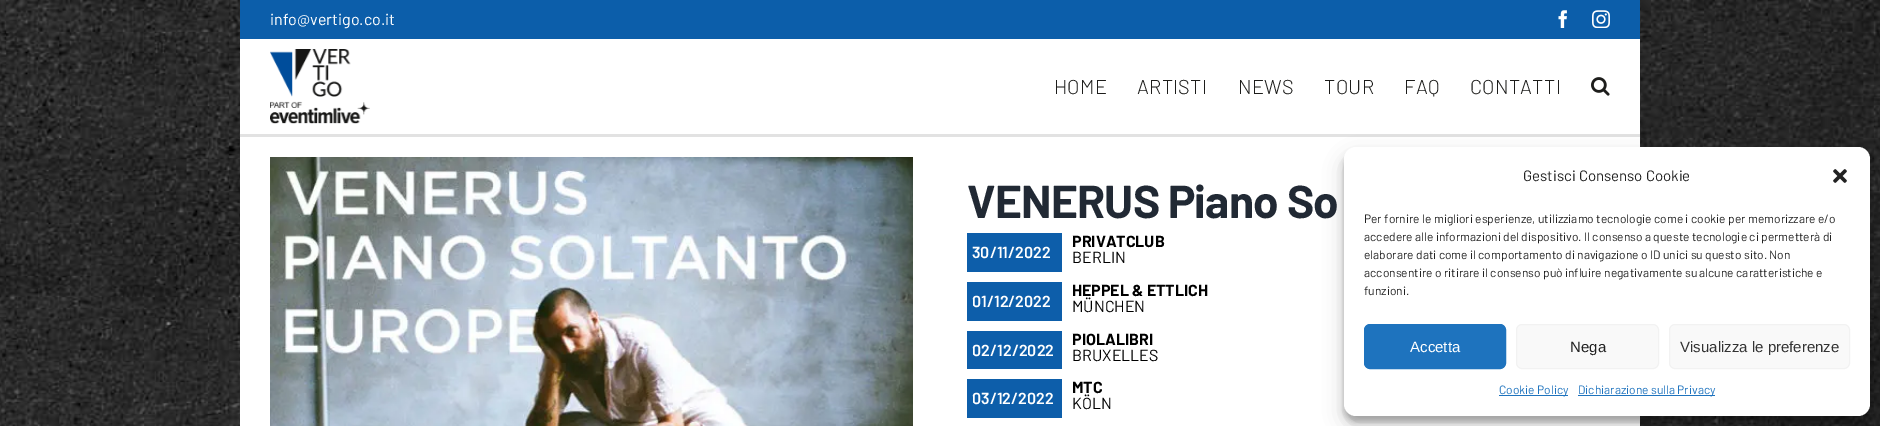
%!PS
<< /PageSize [1880 426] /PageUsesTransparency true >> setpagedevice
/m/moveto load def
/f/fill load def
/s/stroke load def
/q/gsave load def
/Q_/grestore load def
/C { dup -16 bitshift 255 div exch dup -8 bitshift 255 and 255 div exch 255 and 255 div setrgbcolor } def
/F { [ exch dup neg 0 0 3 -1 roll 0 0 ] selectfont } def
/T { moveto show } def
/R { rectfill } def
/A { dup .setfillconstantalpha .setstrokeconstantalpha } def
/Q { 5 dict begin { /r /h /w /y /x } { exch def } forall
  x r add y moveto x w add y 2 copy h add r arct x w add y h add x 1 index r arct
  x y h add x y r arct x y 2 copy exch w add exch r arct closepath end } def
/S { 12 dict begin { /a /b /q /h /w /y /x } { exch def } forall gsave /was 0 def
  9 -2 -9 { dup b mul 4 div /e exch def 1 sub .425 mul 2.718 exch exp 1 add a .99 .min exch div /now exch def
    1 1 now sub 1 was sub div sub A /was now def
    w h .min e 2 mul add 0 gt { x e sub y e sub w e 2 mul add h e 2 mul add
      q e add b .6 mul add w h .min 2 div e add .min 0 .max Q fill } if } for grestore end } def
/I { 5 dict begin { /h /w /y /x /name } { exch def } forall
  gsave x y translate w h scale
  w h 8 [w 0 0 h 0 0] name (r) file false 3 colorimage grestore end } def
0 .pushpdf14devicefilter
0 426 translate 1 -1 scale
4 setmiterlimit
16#FFFFFF C
0 0 1880 426 R
(1.rgb) 0 0 1880 426 I
16#0C5EAA C
240 0 1400 39 R
/Barlow-Regular 16 F
16#FFFFFF C
(info@vertigo.co.it) 270 25 T
(2.rgb) 1558 10 9 18 I
(3.rgb) 1592 10 18 18 I
240 39 1400 95 R
16#E2E2E2 C
240 134 1400 3 R
(4.rgb) 270 49 100 75 I
/Barlow-Light 20 F
16#1D1D1B C
1054 94 m .25 0 (HOME) ashow
1137 94 m .25 0 (ARTISTI) ashow
1238 94 m .25 0 (NEWS) ashow
1324 94 m .25 0 (TOUR) ashow
1404 94 m .25 0 (FAQ) ashow
1470 94 m .25 0 (CONTATTI) ashow
(5.rgb) 1591 77 19 19 I
16#FFFFFF C
240 137 1400 289 R
(6.rgb) 270 157 643 269 I
/Barlow-Bold 46 F
16#212934 C
967 218 m -.75 0 (VENERUS Piano So) ashow
16#0D5EAA C
967 233 95 39 R
/Barlow-SemiBold 16 F
16#FFFFFF C
(30/11/2022) 972 258 T
/Barlow-Bold 16 F
16#000000 C
(PRIVATCLUB) 1072 247 T
/Barlow-Regular 16 F
(BERLIN) 1072 263 T
16#0D5EAA C
967 282 95 39 R
/Barlow-SemiBold 16 F
16#FFFFFF C
(01/12/2022) 972 307 T
/Barlow-Bold 16 F
16#000000 C
(HEPPEL & ETTLICH) 1072 296 T
/Barlow-Regular 16 F
(MÜNCHEN) 1072 312 T
16#0D5EAA C
967 331 95 38 R
/Barlow-SemiBold 16 F
16#FFFFFF C
(02/12/2022) 972 356 T
/Barlow-Bold 16 F
16#000000 C
(PIOLALIBRI) 1072 345 T
/Barlow-Regular 16 F
(BRUXELLES) 1072 361 T
16#0D5EAA C
967 379 95 39 R
/Barlow-SemiBold 16 F
16#FFFFFF C
(03/12/2022) 972 404 T
/Barlow-Bold 16 F
16#000000 C
(MTC) 1072 393 T
/Barlow-Regular 16 F
(KÖLN) 1072 409 T
1344 153 526 269 12 3 .23 S
1344 157 526 269 12 10 .19 S
16#FFFFFF C
1344 147 526 269 12 Q f
/Barlow-Regular 15 F
16#222222 C
(Gestisci Consenso Cookie) 1523 181 T
(7.rgb) 1833 169 14 14 I
/Barlow-Regular 12 F
(Per fornire le migliori esperienze, utilizziamo tecnologie come i cookie per memorizzare e/o) 1364 223 T
(accedere alle informazioni del dispositivo. Il consenso a queste tecnologie ci permetterà di) 1364 241 T
(elaborare dati come il comportamento di navigazione o ID unici su questo sito. Non) 1364 259 T
(acconsentire o ritirare il consenso può influire negativamente su alcune caratteristiche e) 1364 277 T
(funzioni.) 1364 295 T
16#1E73BE C
1364.5 324.5 141 44 5.5 Q q f Q_
s
/LiberationSans-Regular 15 F
16#FFFFFF C
(Accetta) 1410 352 T
16#F9F9F9 C
1516.5 324.5 142 44 5.5 Q q f Q_
16#F2F2F2 C
s
16#222222 C
(Nega) 1570 352 T
16#F9F9F9 C
1669.5 324.5 180 44 5.5 Q q f Q_
16#F2F2F2 C
s
16#333333 C
(Visualizza le preferenze) 1680 352 T
16#1E73BE C
1499 395 69 1 R
/Barlow-Regular 12 F
(Cookie Policy) 1499 394 T
1578 395 137 1 R
(Dichiarazione sulla Privacy) 1578 394 T
.poppdf14devicefilter showpage
